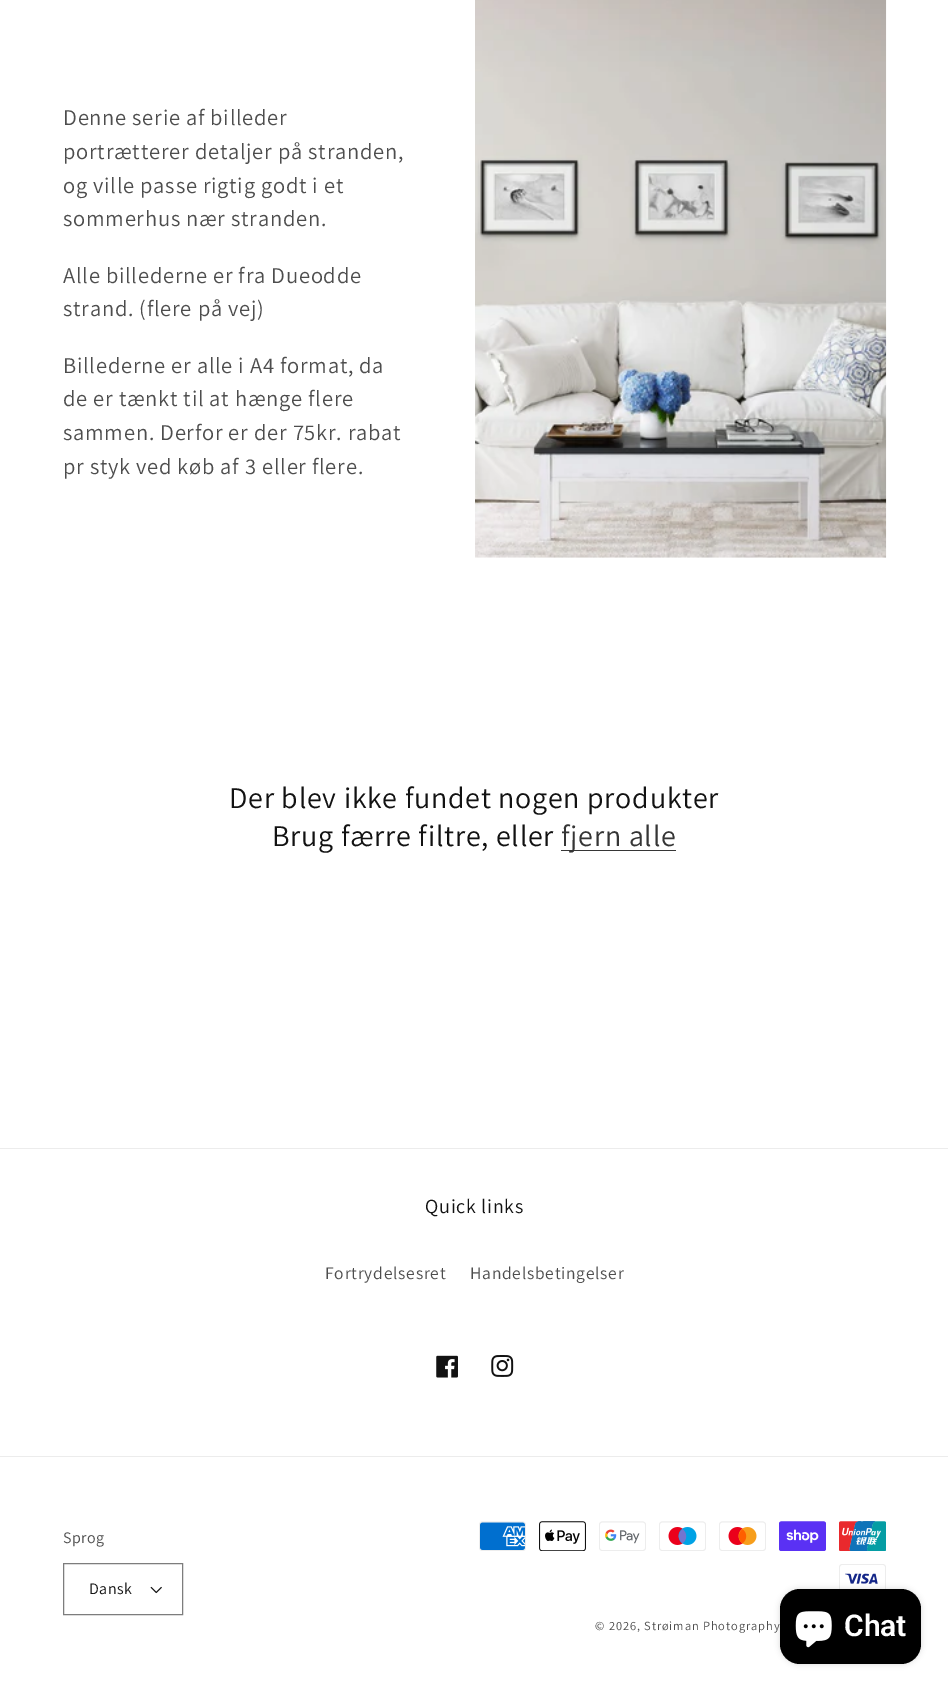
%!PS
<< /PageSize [948 1690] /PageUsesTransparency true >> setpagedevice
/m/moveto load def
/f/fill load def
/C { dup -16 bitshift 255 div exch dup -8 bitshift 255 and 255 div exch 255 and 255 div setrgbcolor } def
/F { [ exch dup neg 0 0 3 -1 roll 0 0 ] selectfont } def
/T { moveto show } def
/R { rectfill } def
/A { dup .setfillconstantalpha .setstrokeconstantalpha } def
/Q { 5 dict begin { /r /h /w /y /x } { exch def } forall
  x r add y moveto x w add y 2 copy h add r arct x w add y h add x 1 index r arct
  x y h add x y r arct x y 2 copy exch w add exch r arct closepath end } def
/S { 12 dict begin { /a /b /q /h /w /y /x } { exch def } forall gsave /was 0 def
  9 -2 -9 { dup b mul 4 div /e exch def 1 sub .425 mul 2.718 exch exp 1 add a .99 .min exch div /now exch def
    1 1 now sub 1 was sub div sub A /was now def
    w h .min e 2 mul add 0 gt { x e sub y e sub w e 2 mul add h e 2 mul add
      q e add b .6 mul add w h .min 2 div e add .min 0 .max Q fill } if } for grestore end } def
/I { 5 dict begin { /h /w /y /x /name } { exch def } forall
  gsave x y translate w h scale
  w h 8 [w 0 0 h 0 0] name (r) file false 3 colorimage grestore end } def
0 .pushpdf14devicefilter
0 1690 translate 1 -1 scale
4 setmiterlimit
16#FFFFFF C
0 0 948 1690 R
/Assistant-Regular 22.5 F
16#4D4D4D C
63 125 m .75 0 (Denne serie af billeder) ashow
63 159 m .75 0 (portrætterer detaljer på stranden,) ashow
63 193 m .75 0 (og ville passe rigtig godt i et) ashow
63 226 m .75 0 (sommerhus nær stranden.) ashow
63 283 m .75 0 (Alle billederne er fra Dueodde) ashow
63 316 m .75 0 (strand. \(flere på vej\)) ashow
63 373 m .75 0 (Billederne er alle i A4 format, da) ashow
63 406 m .75 0 (de er tænkt til at hænge flere) ashow
63 440 m .75 0 (sammen. Derfor er der 75kr. rabat) ashow
63 474 m .75 0 (pr styk ved køb af 3 eller flere.) ashow
(1.rgb) 475 0 412 558 I
/Assistant-Regular 30 F
16#121212 C
229 808 m .75 0 (Der blev ikke fundet nogen produkter) ashow
272 846 m .75 0 (Brug færre filtre, eller) ashow
16#363636 C
561 850 115 1 R
16#353535 C
561 846 m .75 0 (fjern alle) ashow
16#ECECEC C
0 1148 948 1 R
/Assistant-Regular 20 F
16#121212 C
425 1213 m .75 0 (Quick links) ashow
/Assistant-Regular 17.5 F
16#4D4D4D C
325 1279 m .75 0 (Fortrydelsesret) ashow
470 1279 m .75 0 (Handelsbetingelser) ashow
(2.rgb) 436 1355 22 23 I
(3.rgb) 491 1355 23 22 I
16#ECECEC C
0 1456 948 1 R
/Assistant-Regular 16 F
16#4D4D4D C
63 1543 m .5 0 (Sprog) ashow
(4.rgb) 150 1586 12 8 I
16#7D7D7D C
63.5 1563.5 119 51 rectstroke
16#121212 C
89 1594 m .5 0 (Dansk) ashow
(5.rgb) 479 1521 47 30 I
(6.rgb) 539 1521 47 30 I
(7.rgb) 599 1521 47 30 I
(8.rgb) 659 1521 47 30 I
(9.rgb) 719 1521 47 30 I
(10.rgb) 779 1521 47 30 I
(11.rgb) 839 1521 47 30 I
(12.rgb) 839 1564 47 25 I
/Assistant-Regular 12.5 F
16#4D4D4D C
595 1630 m .9 0 (© 2026, Strøiman Photography) ashow
16#000000 C
780 1589 141 75 20 3 .15 S
780 1589 141 75 20 Q f
(13.rgb) 795 1611 37 37 I
/Roboto-SemiBold 30 F
16#FFFFFF C
(Chat) 844 1636 T
.poppdf14devicefilter showpage
